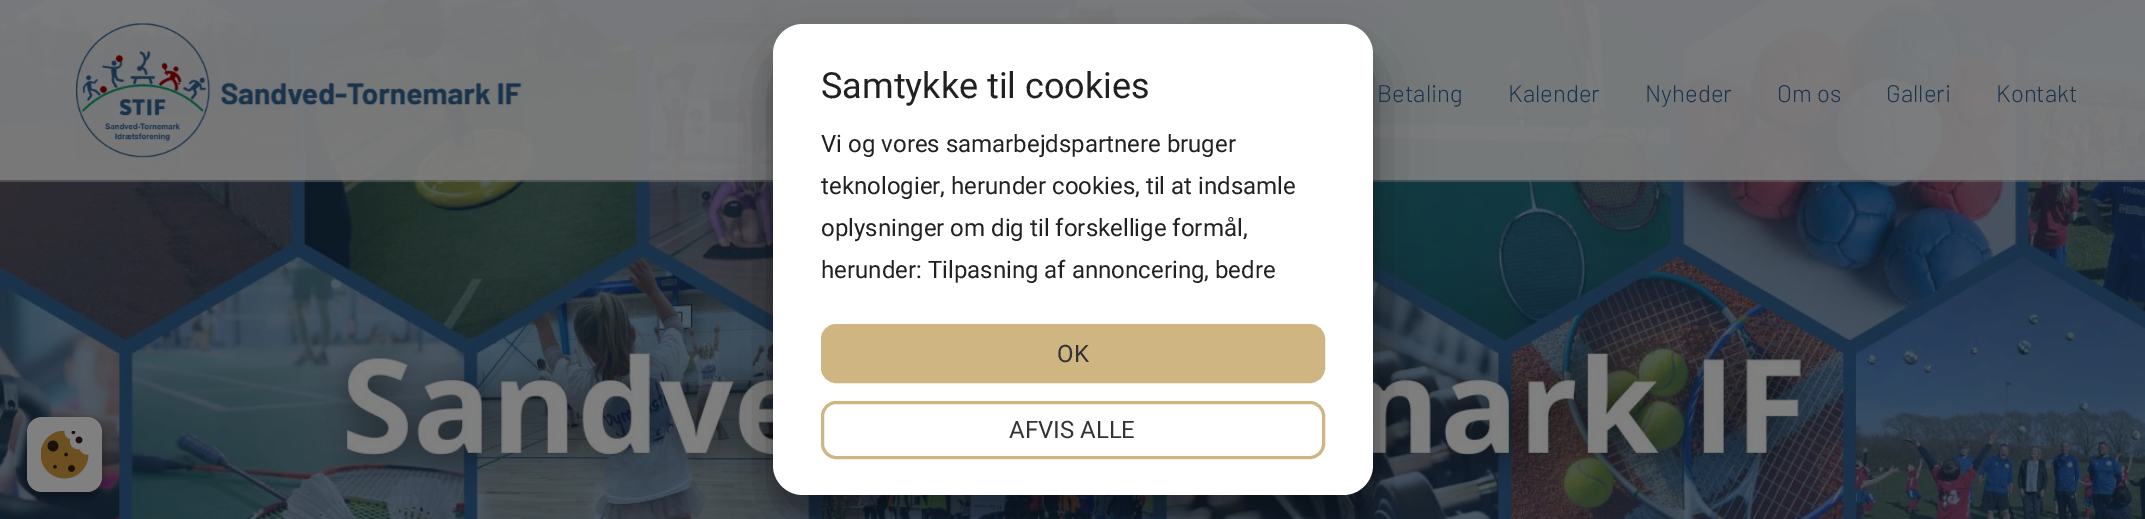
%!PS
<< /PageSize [2145 519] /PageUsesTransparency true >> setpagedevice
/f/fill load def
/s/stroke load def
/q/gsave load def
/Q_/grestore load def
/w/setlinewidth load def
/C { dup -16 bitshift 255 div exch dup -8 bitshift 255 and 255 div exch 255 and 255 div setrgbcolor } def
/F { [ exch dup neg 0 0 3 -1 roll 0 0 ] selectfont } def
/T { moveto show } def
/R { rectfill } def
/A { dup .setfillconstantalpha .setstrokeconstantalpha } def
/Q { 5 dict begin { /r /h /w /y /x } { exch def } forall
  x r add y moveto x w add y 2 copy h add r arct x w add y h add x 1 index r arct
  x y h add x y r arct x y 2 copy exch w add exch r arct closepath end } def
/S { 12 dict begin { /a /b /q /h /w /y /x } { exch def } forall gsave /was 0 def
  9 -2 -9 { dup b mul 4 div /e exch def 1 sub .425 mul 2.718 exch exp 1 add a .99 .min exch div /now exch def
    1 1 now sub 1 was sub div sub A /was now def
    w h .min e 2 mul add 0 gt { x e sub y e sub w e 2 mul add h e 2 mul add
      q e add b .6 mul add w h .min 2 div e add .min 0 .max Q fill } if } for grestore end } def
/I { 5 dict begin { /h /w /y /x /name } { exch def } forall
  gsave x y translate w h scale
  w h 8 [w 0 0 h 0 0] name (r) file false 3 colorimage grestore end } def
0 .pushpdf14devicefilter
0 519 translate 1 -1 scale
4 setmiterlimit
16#FFFFFF C
0 0 2145 519 R
(1.rgb) 0 0 2145 519 I
0.5 A
16#727272 C
0 180 2145 2 R
0.9 A
16#808080 C
0 0 2145 180 R
1 A
16#000000 C
773 47 600 471 30 9 .22 S
773 53 600 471 30 28.5 .3 S
16#FFFFFF C
773 24 600 471 30 Q f
/Roboto-Regular 36 F
16#212121 C
(Samtykke til cookies) 821 98 T
/Roboto-Regular 24 F
(Vi og vores samarbejdspartnere bruger) 821 152 T
(teknologier, herunder cookies, til at indsamle) 821 194 T
(oplysninger om dig til forskellige formål,) 821 236 T
(herunder: Tilpasning af annoncering, bedre) 821 278 T
16#CEB582 C
822.5 325.5 501 56 13.5 Q q f Q_
3 w
s
16#333333 C
(OK) 1057 362 T
16#CEB582 C
822.5 402.5 501 55 13.5 Q s
16#333333 C
(AFVIS ALLE) 1009 438 T
(2.rgb) 75 23 447 135 I
/Barlow-Light 24 F
16#1A334D C
(Betaling) 1377 102 T
(Kalender) 1508 102 T
(Nyheder) 1645 102 T
(Om os) 1777 102 T
(Galleri) 1886 102 T
(Kontakt) 1996 102 T
16#000000 C
27 422 75 75 15 4.5 .23 S
27 422 75 75 15 4.5 .16 S
16#808080 C
27 417 75 75 15 Q f
(3.rgb) 41 431 48 48 I
.poppdf14devicefilter showpage
